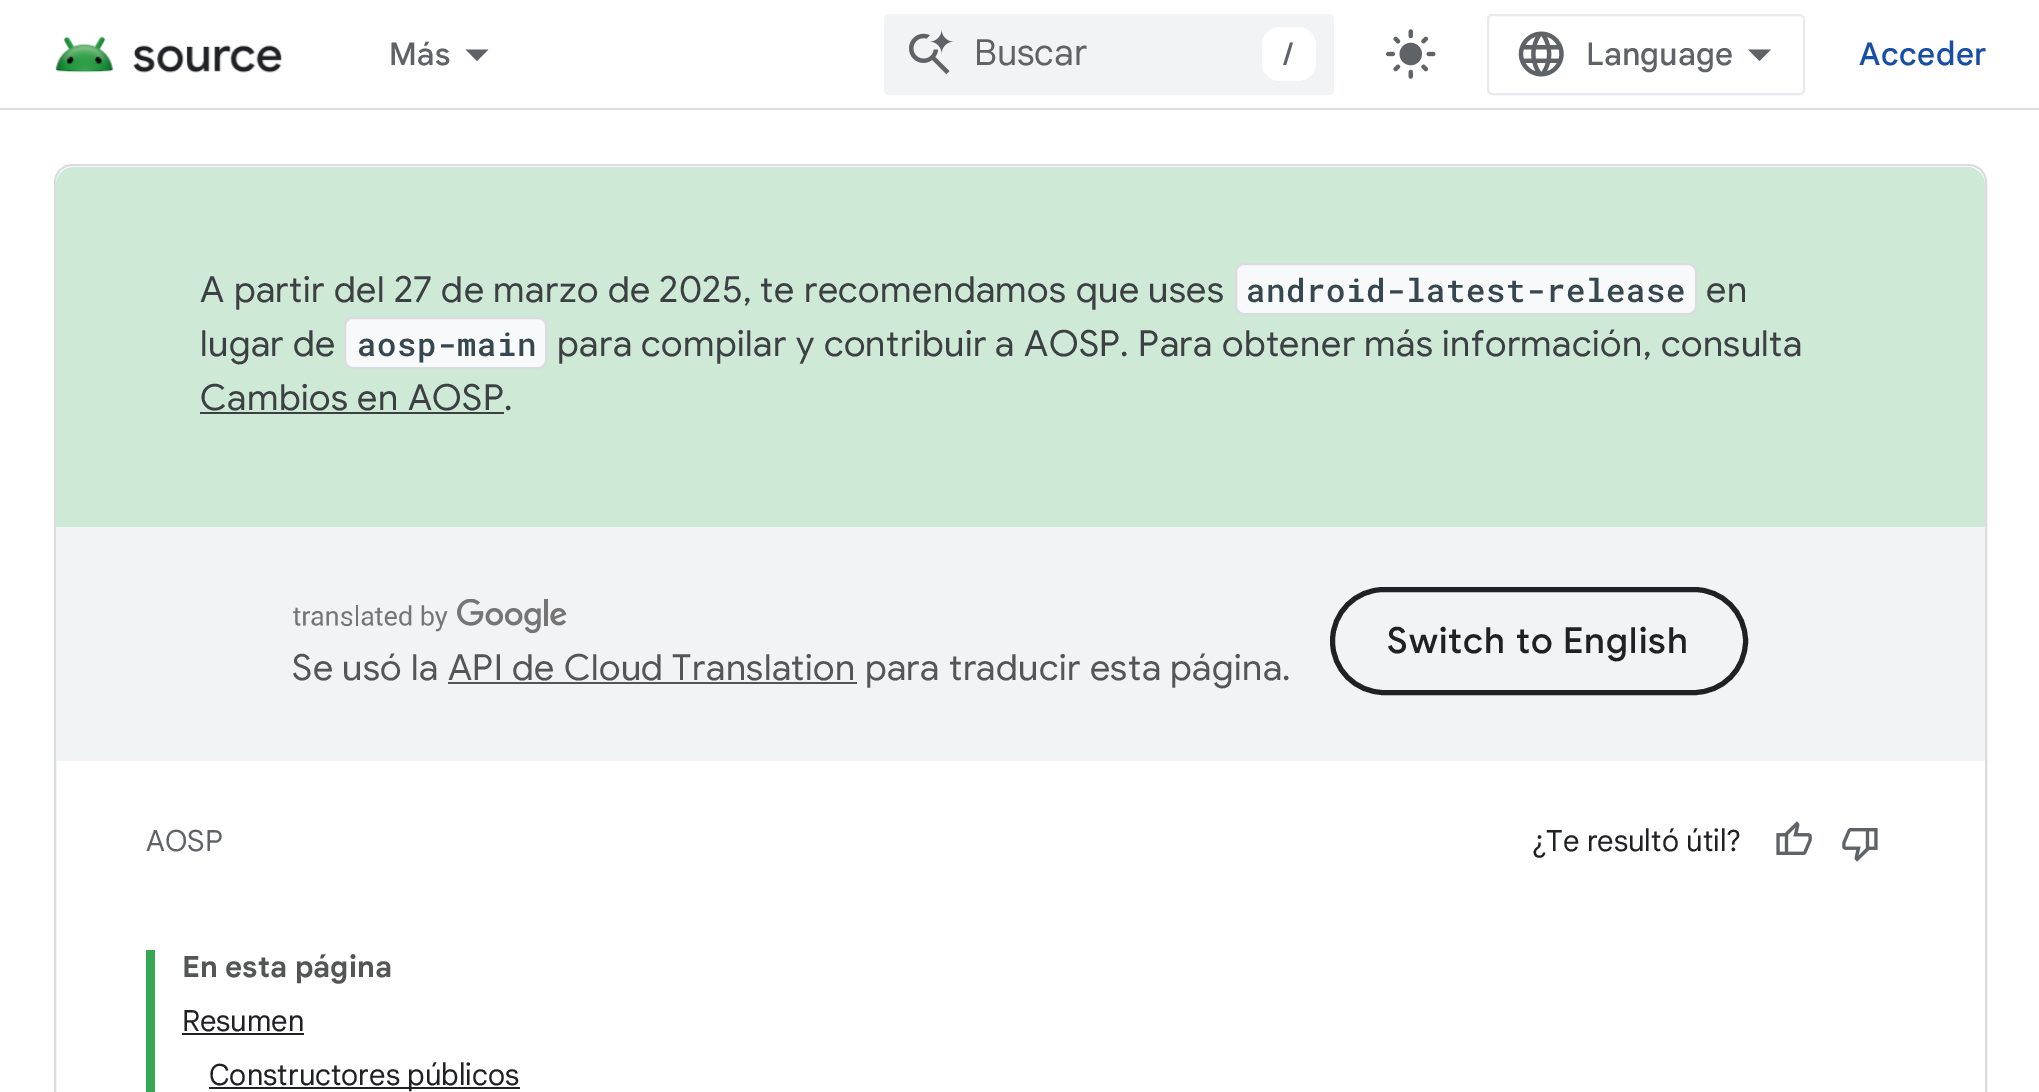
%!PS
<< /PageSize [2039 1092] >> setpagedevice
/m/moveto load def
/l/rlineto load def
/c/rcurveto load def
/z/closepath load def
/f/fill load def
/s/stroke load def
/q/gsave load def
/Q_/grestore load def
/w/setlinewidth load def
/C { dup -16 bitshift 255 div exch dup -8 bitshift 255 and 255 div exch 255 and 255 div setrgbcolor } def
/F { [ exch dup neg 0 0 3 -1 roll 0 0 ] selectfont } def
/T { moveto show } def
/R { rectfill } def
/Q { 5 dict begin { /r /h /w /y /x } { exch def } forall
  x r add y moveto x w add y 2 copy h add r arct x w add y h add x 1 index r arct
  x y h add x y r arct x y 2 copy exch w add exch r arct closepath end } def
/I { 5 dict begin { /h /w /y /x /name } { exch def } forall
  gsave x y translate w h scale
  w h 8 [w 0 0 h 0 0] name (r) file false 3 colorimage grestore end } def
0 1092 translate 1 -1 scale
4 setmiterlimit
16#FFFFFF C
0 0 2039 1092 R
16#DADCE0 C
0 108 2039 2 R
(1.rgb) 55 36 227 37 I
/GoogleSans-Medium 31.5 F
16#5F6368 C
389 65 m .55 0 (Más) ashow
465.5 49.5 m 23 0 l -11.5 11.5 l z f
16#F1F3F4 C
884 14 450 81 5 Q f
(2.rgb) 909 29 45 46 I
/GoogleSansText-Regular 36 F
16#5F6368 C
(Buscar) 974 65 T
16#FFFFFF C
1262 27 54 54 18 Q f
/GoogleSans-Medium 31.5 F
16#5F6368 C
(/) 1283 65 T
(3.rgb) 1386 29 50 50 I
16#E8EAED C
2 w
1488 15 316 79 4 Q s
(4.rgb) 1518 31 46 46 I
/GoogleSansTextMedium-Medium 31.5 F
16#5F6368 C
(Language) 1586 65 T
1759.5 61 m -11.5 -11.5 l 23 0 l z f
16#174EA6 C
1859 65 m .55 0 (Acceder) ashow
16#DADCE0 C
55 165 1931 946 17 Q s
16#CEEAD6 C
74 167 m 1893 0 l 10 0 18 8 18 18 c 0 342 l -1929 0 l 0 -342 l 0 -10 8 -18 18 -18 c z f
/GoogleSans-Regular 36 F
16#3C4043 C
200 302 m .55 0 (A partir del 27 de marzo de 2025, te recomendamos que uses) ashow
16#F8F9FA C
1236 264 460 50 8 Q q f Q_
16#DADCE0 C
s
/RobotoMono-Medium 32.4 F
16#37474F C
1246 302 m .55 0 (android-latest-release) ashow
/GoogleSans-Regular 36 F
16#3C4043 C
1706 302 m .55 0 (en) ashow
200 356 m .55 0 (lugar de) ashow
16#F8F9FA C
345 318 201 50 8 Q q f Q_
16#DADCE0 C
s
/RobotoMono-Medium 32.4 F
16#37474F C
357 356 m .55 0 (aosp-main) ashow
/GoogleSans-Regular 36 F
16#3C4043 C
557 356 m .55 0 (para compilar y contribuir a AOSP. Para obtener más información, consulta) ashow
200 410 m .55 0 (Cambios en AOSP.) ashow
200 412 304 2 R
16#F1F3F4 C
56 527 1929 234 R
16#202124 C
5 w
1332.5 589.5 413 103 51.5 Q s
/GoogleSans-Medium 36 F
1387 653 m 1.1 0 (Switch to English) ashow
(5.rgb) 293 599 274 35 I
/GoogleSans-Regular 36 F
16#545555 C
292 680 m .55 0 (Se usó la API de Cloud Translation para traducir esta página.) ashow
448 682 409 2 R
/GoogleSansText-Regular 29.25 F
16#5F6368 C
(AOSP) 146 851 T
16#202124 C
(¿Te resultó útil?) 1532 851 T
(6.rgb) 1776 821 36 34 I
(7.rgb) 1842 828 36 34 I
16#34A853 C
146 950 9 142 R
/GoogleSansText-Bold 29.25 F
16#545555 C
(En esta página) 182 977 T
/GoogleSansText-Regular 29.25 F
16#202124 C
(Resumen) 182 1031 T
182 1033 122 2 R
209 1087 311 2 R
(Constructores públicos) 209 1085 T
showpage
